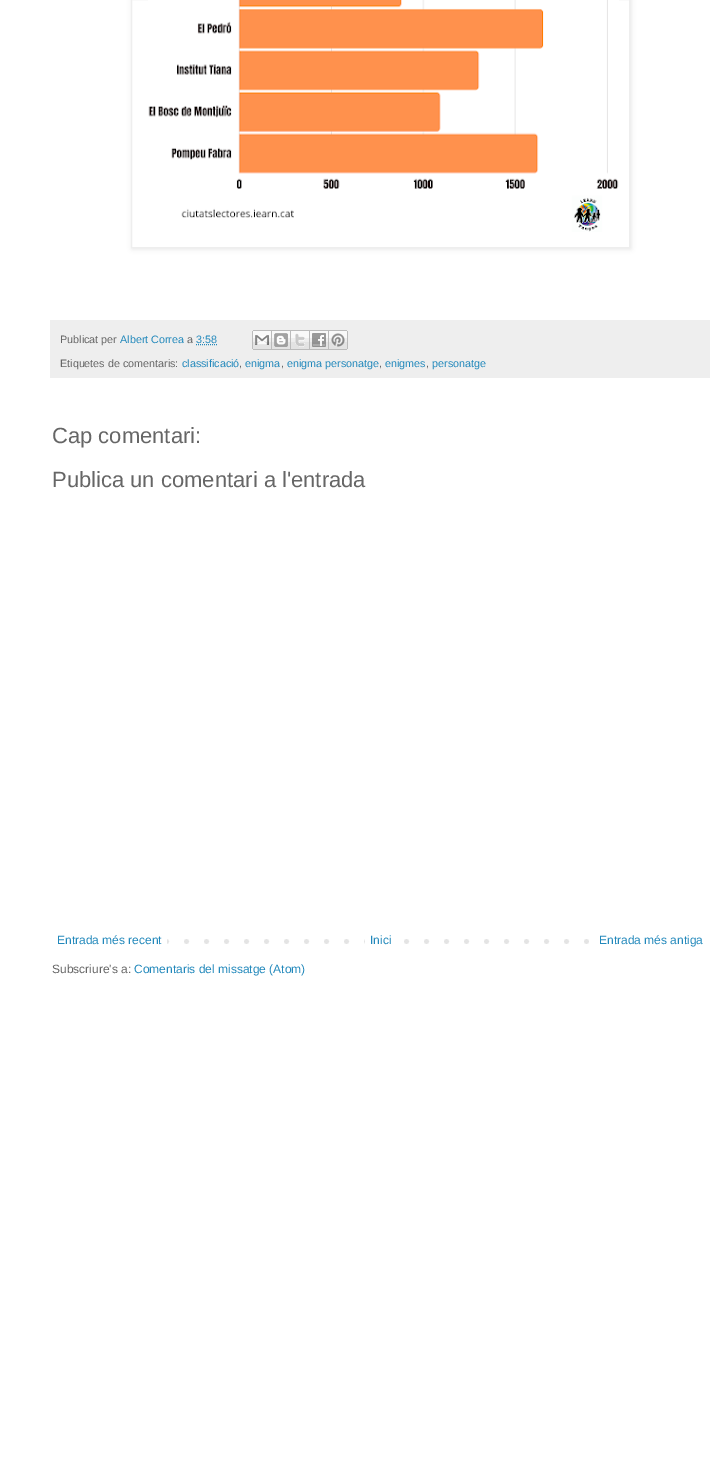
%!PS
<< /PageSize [716 1484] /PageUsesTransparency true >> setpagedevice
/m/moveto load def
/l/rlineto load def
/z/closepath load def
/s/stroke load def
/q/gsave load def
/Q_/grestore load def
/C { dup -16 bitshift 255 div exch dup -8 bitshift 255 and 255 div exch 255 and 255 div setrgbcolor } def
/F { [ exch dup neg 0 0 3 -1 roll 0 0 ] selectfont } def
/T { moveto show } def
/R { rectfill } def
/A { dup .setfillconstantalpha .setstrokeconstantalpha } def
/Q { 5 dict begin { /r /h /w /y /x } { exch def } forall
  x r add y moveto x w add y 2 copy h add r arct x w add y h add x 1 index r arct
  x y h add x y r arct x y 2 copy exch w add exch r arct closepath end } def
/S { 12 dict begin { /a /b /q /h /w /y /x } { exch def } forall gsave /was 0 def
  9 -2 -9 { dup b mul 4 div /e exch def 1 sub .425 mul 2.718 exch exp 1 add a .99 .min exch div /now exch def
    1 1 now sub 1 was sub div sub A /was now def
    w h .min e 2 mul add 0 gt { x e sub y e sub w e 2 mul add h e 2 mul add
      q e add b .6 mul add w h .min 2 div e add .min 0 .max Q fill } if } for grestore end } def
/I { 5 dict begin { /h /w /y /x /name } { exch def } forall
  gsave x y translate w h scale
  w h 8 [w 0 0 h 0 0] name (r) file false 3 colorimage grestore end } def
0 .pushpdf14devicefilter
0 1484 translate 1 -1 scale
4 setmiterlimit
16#FFFFFF C
0 0 716 1484 R
q
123 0 m 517 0 l 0 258 l -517 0 l z 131 -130 m 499 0 l 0 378 l -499 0 l z eoclip newpath
16#000000 C
132 -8 499 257 0 2.5 .1 S
Q_
16#EEEEEE C
131.5 -.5 498 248 rectstroke
(1.rgb) 148 0 471 232 I
50 320 660 58 R
/LiberationSans-Regular 10.75 F
16#666666 C
(Publicat per) 60 343 T
16#2288BB C
(Albert Correa) 120 343 T
16#666666 C
(a) 187 343 T
16#2288BB C
[1 1] 0 setdash
196 344.5 m 21.5 0 l s
(3:58) 196 343 T
(2.rgb) 252 330 20 20 I
(3.rgb) 272 330 19 20 I
(4.rgb) 291 330 19 20 I
(5.rgb) 310 330 19 20 I
(6.rgb) 329 330 19 20 I
16#666666 C
(Etiquetes de comentaris:) 60 367 T
16#2288BB C
(classificació) 182 367 T
16#666666 C
(,) 239 367 T
16#2288BB C
(enigma) 245 367 T
16#666666 C
(,) 281 367 T
16#2288BB C
(enigma personatge) 287 367 T
16#666666 C
(,) 379 367 T
16#2288BB C
(enigmes) 385 367 T
16#666666 C
(,) 426 367 T
16#2288BB C
(personatge) 432 367 T
/LiberationSans-Regular 22 F
16#666666 C
(Cap comentari:) 52 443 T
(Publica un comentari a l'entrada) 52 487 T
(7.rgb) 167 939 422 5 I
/LiberationSans-Regular 12 F
16#2288BB C
(Entrada més recent) 57 944 T
16#FFFFFF C
365 939 25 5 R
16#2288BB C
(Inici) 370 944 T
(Entrada més antiga) 599 944 T
16#666666 C
(Subscriure's a:) 52 973 T
16#2288BB C
(Comentaris del missatge \(Atom\)) 134 973 T
.poppdf14devicefilter showpage
